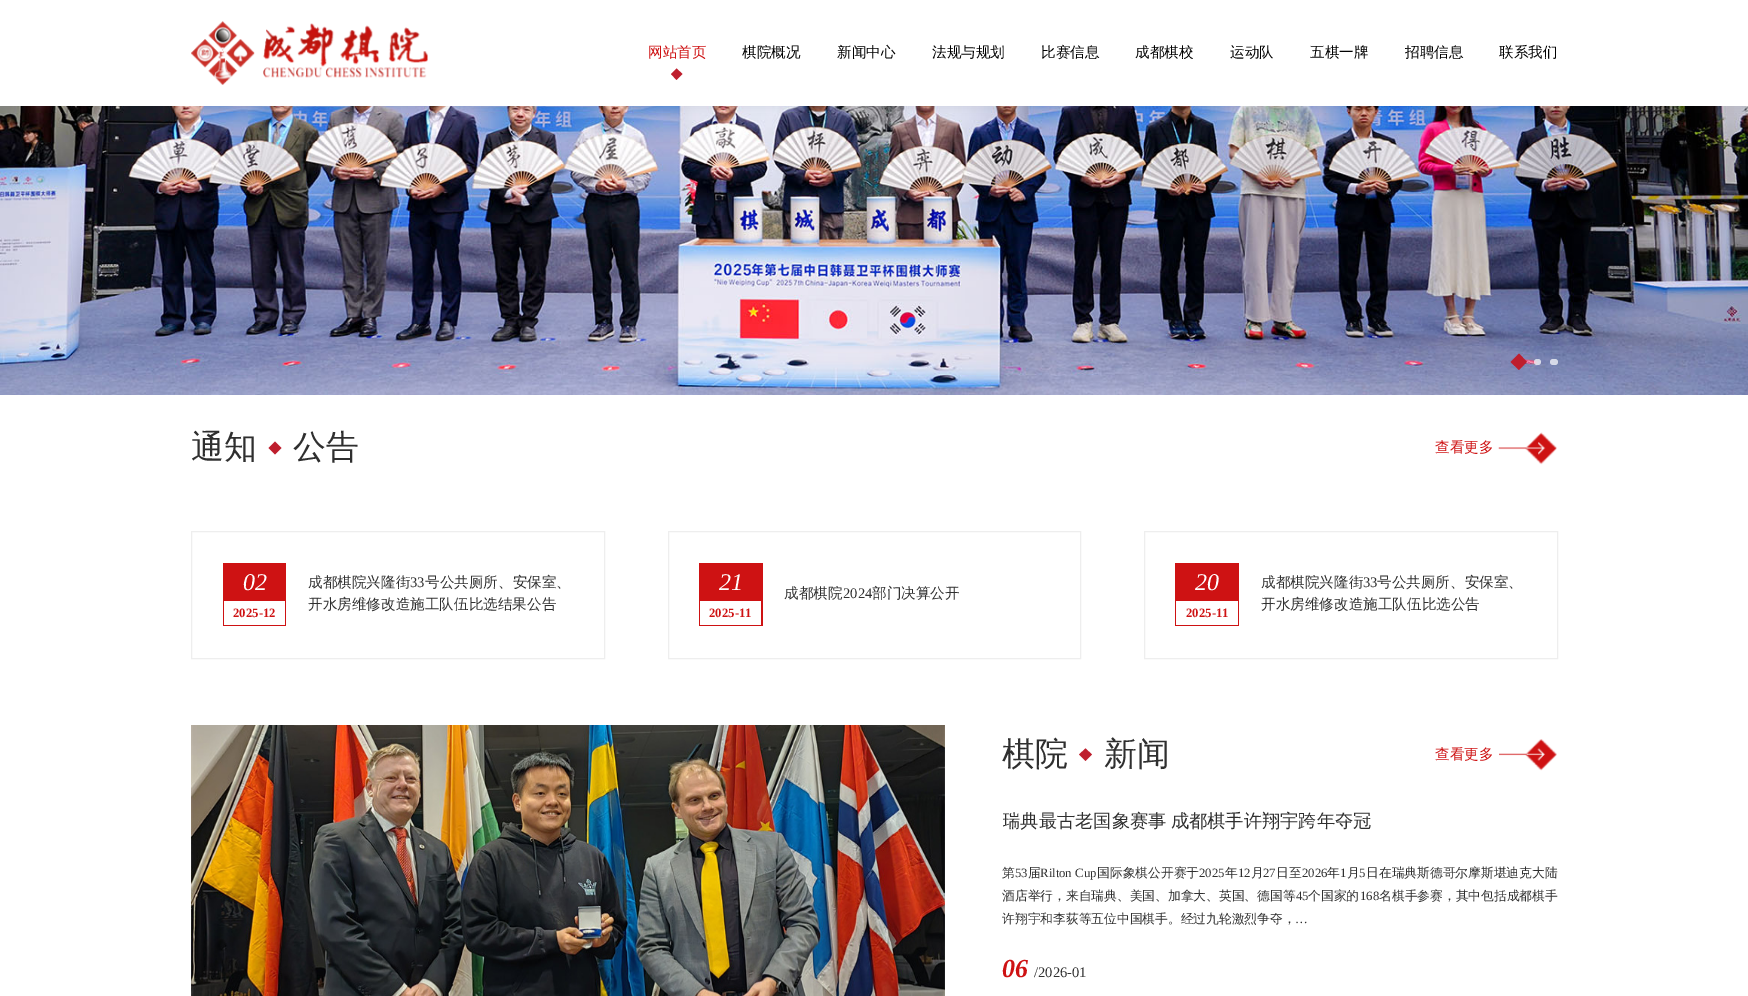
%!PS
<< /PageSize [1748 996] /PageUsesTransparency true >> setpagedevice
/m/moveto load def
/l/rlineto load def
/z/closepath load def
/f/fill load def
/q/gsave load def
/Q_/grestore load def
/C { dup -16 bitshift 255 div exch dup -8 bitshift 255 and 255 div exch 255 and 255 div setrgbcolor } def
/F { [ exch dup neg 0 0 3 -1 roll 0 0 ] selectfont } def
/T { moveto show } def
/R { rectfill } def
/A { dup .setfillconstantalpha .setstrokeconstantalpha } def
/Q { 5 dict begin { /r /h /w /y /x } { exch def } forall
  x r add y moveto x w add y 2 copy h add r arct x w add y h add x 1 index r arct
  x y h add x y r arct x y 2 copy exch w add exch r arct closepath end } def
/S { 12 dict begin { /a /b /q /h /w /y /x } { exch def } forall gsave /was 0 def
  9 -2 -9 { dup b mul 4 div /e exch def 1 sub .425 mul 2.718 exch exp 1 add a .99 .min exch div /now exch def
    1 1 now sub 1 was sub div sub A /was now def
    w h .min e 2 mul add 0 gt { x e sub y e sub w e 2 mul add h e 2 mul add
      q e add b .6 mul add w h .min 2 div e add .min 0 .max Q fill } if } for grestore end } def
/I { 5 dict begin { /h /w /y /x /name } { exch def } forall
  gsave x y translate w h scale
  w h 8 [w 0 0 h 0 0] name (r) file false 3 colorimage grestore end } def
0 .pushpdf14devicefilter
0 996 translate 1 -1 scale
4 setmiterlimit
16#FFFFFF C
0 0 1748 996 R
(2.rgb) 0 106 1748 289 I
16#000000 C
0 1 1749 107 0 4.5 .05 S
16#FFFFFF C
0 0 1748 106 R
(1.rgb) 191 21 237 64 I
/WenQuanYiZenHei-Medium 14.6 F
16#CE1213 C
(网站首页) 648 57 T
16#BE1E2D C
676.5 68.5 m 6 5.5 l -6 6 l -5.5 -6 l z f
16#000000 C
(棋院概况) 742 57 T
(新闻中心) 837 57 T
(法规与规划) 932 57 T
(比赛信息) 1041 57 T
(成都棋校) 1135 57 T
(运动队) 1230 57 T
(五棋一牌) 1310 57 T
(招聘信息) 1405 57 T
(联系我们) 1499 57 T
16#BE1E2D C
1519 353.5 m 8 8.5 l -8 8 l -8.5 -8 l z f
0.7 A
16#FFFFFF C
1534 359 7 6 3 Q f
1550 359 8 6 3 Q f
/WenQuanYiZenHei-Medium 33 F
1 A
16#2F2F2F C
(通知) 191 458 T
16#BE1E2D C
275 441.5 m 6.5 6.5 l -6.5 6.5 l -6.5 -6.5 l z f
16#2F2F2F C
(公告) 293 458 T
/WenQuanYiZenHei-Medium 14.6 F
16#CE1213 C
(查看更多) 1435 452 T
(3.rgb) 1498 432 59 33 I
16#EEEEEE C
191.5 531.5 413 127 rectstroke
16#CE1213 C
223 563 63 63 R
/LiberationSerif-Italic 24 F
16#FFFFFF C
(02) 243 590 T
224 601 61 24 R
/LiberationSerif-Bold 12.75 F
16#CE1213 C
(2025-12) 233 617 T
/WenQuanYiZenHei-Medium 14.6 F
16#2F2F2F C
(成都棋院兴隆街) 308 587 T
/LiberationSerif-Regular 14.6 F
(33) 410 587 T
/WenQuanYiZenHei-Medium 14.6 F
(号公共厕所、安保室、) 425 587 T
(开水房维修改造施工队伍比选结果公告) 308 609 T
16#EEEEEE C
668.5 531.5 412 127 rectstroke
16#CE1213 C
699 563 64 63 R
/LiberationSerif-Italic 24 F
16#FFFFFF C
(21) 719 590 T
700 601 61 24 R
/LiberationSerif-Bold 12.75 F
16#CE1213 C
(2025-11) 709 617 T
/WenQuanYiZenHei-Medium 14.6 F
16#2F2F2F C
(成都棋院) 784 598 T
/LiberationSerif-Regular 14.6 F
(2024) 843 598 T
/WenQuanYiZenHei-Medium 14.6 F
(部门决算公开) 872 598 T
16#EEEEEE C
1144.5 531.5 413 127 rectstroke
16#CE1213 C
1175 563 64 63 R
/LiberationSerif-Italic 24 F
16#FFFFFF C
(20) 1195 590 T
1176 601 62 24 R
/LiberationSerif-Bold 12.75 F
16#CE1213 C
(2025-11) 1186 617 T
/WenQuanYiZenHei-Medium 14.6 F
16#2F2F2F C
(成都棋院兴隆街) 1261 587 T
/LiberationSerif-Regular 14.6 F
(33) 1363 587 T
/WenQuanYiZenHei-Medium 14.6 F
(号公共厕所、安保室、) 1377 587 T
(开水房维修改造施工队伍比选公告) 1261 609 T
(4.rgb) 191 725 754 271 I
/WenQuanYiZenHei-Medium 33 F
(棋院) 1002 765 T
16#BE1E2D C
1085.5 748.5 m 6.5 6 l -6.5 6.5 l -6.5 -6.5 l z f
16#2F2F2F C
(新闻) 1104 765 T
/WenQuanYiZenHei-Medium 14.6 F
16#CE1213 C
(查看更多) 1435 759 T
(5.rgb) 1499 739 58 32 I
q
1003 809 555 25 rectclip
/WenQuanYiZenHei-Medium 18.25 F
16#2F2F2F C
1002 827 m -1 0 32 (瑞典最古老国象赛事 成都棋手许翔宇跨年夺冠) widthshow
Q_
/WenQuanYiZenHei-Medium 12.75 F
16#2F2F2F C
(第) 1002 877 T
/LiberationSerif-Regular 12.75 F
(53) 1015 877 T
/WenQuanYiZenHei-Medium 12.75 F
(届) 1028 877 T
/LiberationSerif-Regular 12.75 F
(Rilton Cup) 1040 877 T
/WenQuanYiZenHei-Medium 12.75 F
(国际象棋公开赛于) 1097 877 T
/LiberationSerif-Regular 12.75 F
(2025) 1199 877 T
/WenQuanYiZenHei-Medium 12.75 F
(年) 1225 877 T
/LiberationSerif-Regular 12.75 F
(12) 1238 877 T
/WenQuanYiZenHei-Medium 12.75 F
(月) 1251 877 T
/LiberationSerif-Regular 12.75 F
(27) 1263 877 T
/WenQuanYiZenHei-Medium 12.75 F
(日至) 1276 877 T
/LiberationSerif-Regular 12.75 F
(2026) 1302 877 T
/WenQuanYiZenHei-Medium 12.75 F
(年) 1327 877 T
/LiberationSerif-Regular 12.75 F
(1) 1340 877 T
/WenQuanYiZenHei-Medium 12.75 F
(月) 1347 877 T
/LiberationSerif-Regular 12.75 F
(5) 1359 877 T
/WenQuanYiZenHei-Medium 12.75 F
(日在瑞典斯德哥尔摩斯堪迪克大陆) 1366 877 T
(酒店举行，来自瑞典、美国、加拿大、英国、德国等) 1002 900 T
/LiberationSerif-Regular 12.75 F
(45) 1296 900 T
/WenQuanYiZenHei-Medium 12.75 F
(个国家的) 1308 900 T
/LiberationSerif-Regular 12.75 F
(168) 1360 900 T
/WenQuanYiZenHei-Medium 12.75 F
(名棋手参赛，其中包括成都棋手) 1379 900 T
(许翔宇和李荻等五位中国棋手。经过九轮激烈争夺，) 1002 923 T
/LiberationSerif-Regular 12.75 F
(…) 1295 923 T
/LiberationSerif-BoldItalic 26 F
16#CE1213 C
(06) 1002 977 T
/LiberationSerif-Regular 14.6 F
16#2F2F2F C
(/2026-01) 1034 977 T
.poppdf14devicefilter showpage
